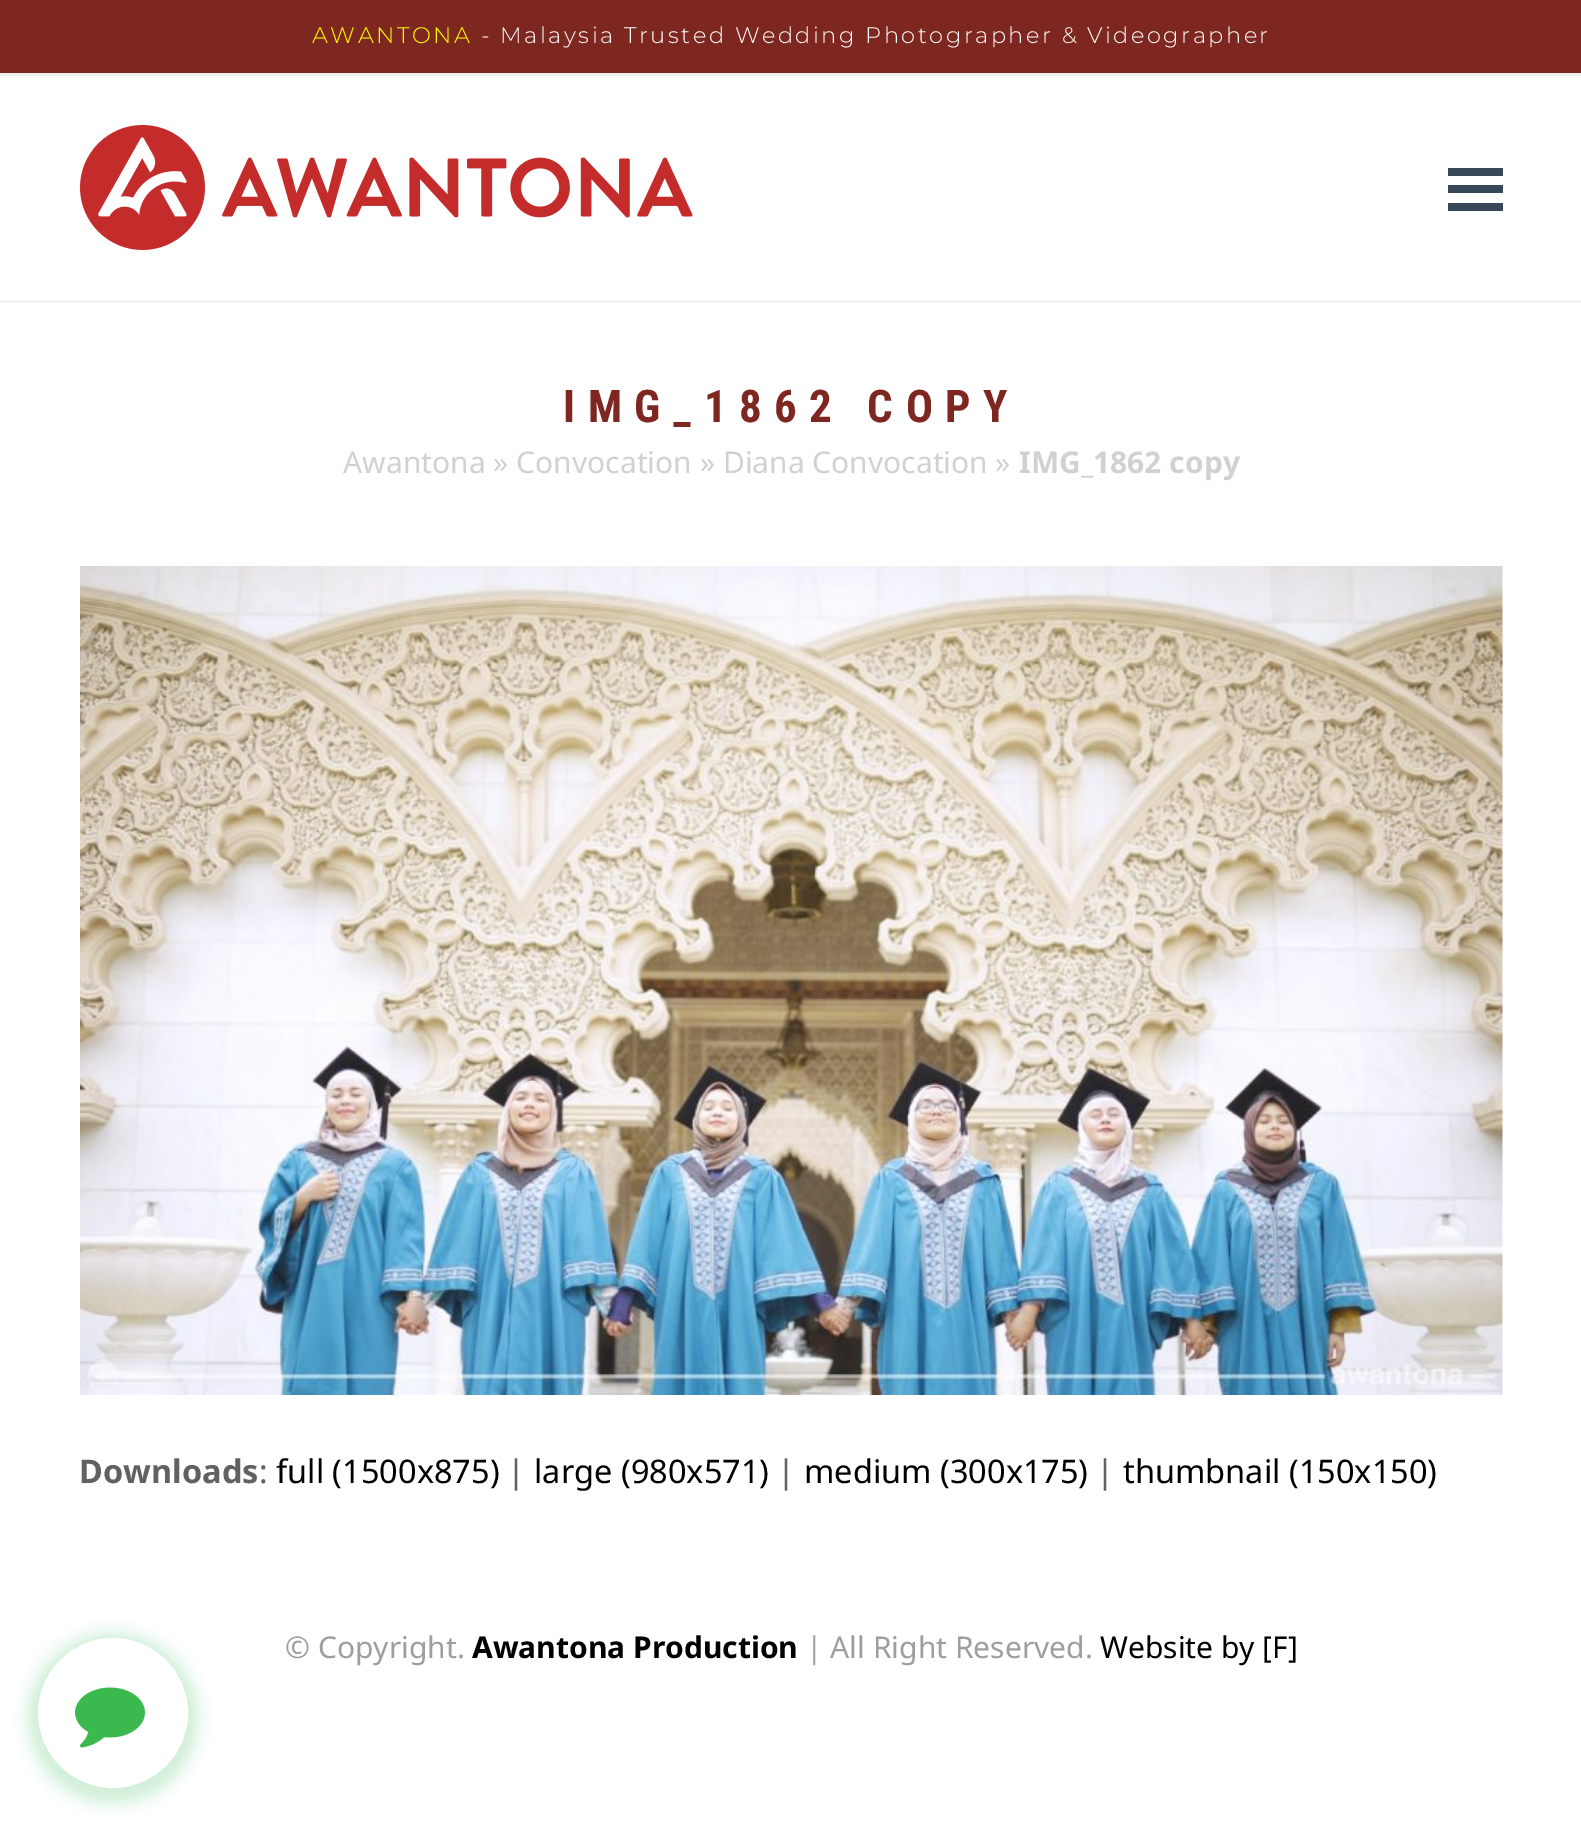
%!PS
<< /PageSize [1581 1824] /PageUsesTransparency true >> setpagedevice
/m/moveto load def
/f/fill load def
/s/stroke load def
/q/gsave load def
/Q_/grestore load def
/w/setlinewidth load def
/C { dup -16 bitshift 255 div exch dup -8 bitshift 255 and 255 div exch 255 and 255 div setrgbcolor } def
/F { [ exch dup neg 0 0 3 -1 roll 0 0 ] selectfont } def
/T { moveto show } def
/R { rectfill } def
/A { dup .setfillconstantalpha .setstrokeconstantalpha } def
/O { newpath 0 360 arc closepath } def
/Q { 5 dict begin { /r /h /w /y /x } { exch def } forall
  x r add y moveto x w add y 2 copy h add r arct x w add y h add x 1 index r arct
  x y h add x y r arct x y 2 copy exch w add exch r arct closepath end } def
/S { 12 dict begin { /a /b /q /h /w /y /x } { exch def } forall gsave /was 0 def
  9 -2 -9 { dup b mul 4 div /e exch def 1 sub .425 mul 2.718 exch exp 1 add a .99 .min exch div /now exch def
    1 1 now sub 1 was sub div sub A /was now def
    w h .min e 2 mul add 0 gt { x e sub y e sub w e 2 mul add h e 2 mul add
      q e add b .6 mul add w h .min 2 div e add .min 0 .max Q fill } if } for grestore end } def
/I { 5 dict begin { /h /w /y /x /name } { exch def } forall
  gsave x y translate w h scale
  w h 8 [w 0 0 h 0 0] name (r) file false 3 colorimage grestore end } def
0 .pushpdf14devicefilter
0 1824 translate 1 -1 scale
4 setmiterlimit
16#FFFFFF C
0 0 1581 1824 R
16#7E2720 C
0 0 1581 73 R
16#EEEEEE C
0 73 1581 3 R
/Montserrat-Light 22.5 F
16#FFFF00 C
312 43 m 2.5 0 (AWANTONA) ashow
16#FFFFFF C
481 43 m 2.5 0 (- Malaysia Trusted Wedding Photographer & Videographer) ashow
(1.rgb) 80 125 613 125 I
16#384859 C
1448 185 55 8 R
1448 168 55 8 R
1448 203 55 8 R
16#F4F4F4 C
0 300 1581 3 R
/RobotoCondensed-Bold 45 F
16#7E2720 C
563 422 m 12.5 0 (IMG_1862 COPY) ashow
/NotoSans-Regular 30 F
16#D1D1D1 C
(Awantona » Convocation » Diana Convocation) 343 473 T
(») 995 473 T
/NotoSans-Bold 30 F
(IMG_1862 copy) 1019 473 T
(2.rgb) 80 566 1423 829 I
/NotoSans-Bold 32.5 F
16#616161 C
(Downloads) 79 1483 T
/NotoSans-Regular 32.5 F
(:) 259 1483 T
16#000000 C
(full \(1500x875\)) 276 1483 T
16#616161 C
(|) 507 1483 T
16#000000 C
(large \(980x571\)) 534 1483 T
16#616161 C
(|) 777 1483 T
16#000000 C
(medium \(300x175\)) 804 1483 T
16#616161 C
(|) 1096 1483 T
16#000000 C
(thumbnail \(150x150\)) 1123 1483 T
/NotoSans-Regular 30 F
16#9E9E9E C
(© Copyright.) 285 1658 T
/NotoSans-Bold 30 F
16#000000 C
(Awantona Production) 472 1658 T
/NotoSans-Regular 30 F
16#9E9E9E C
(| All Right Reserved.) 806 1658 T
16#000000 C
(Website by [F]) 1100 1658 T
16#3BB84E C
28 1633 170 170 85 7.5 .24 S
16#FFFFFF C
113 1713 68.5 O q f Q_
13 w
s
(3.rgb) 75 1687 70 61 I
.poppdf14devicefilter showpage
